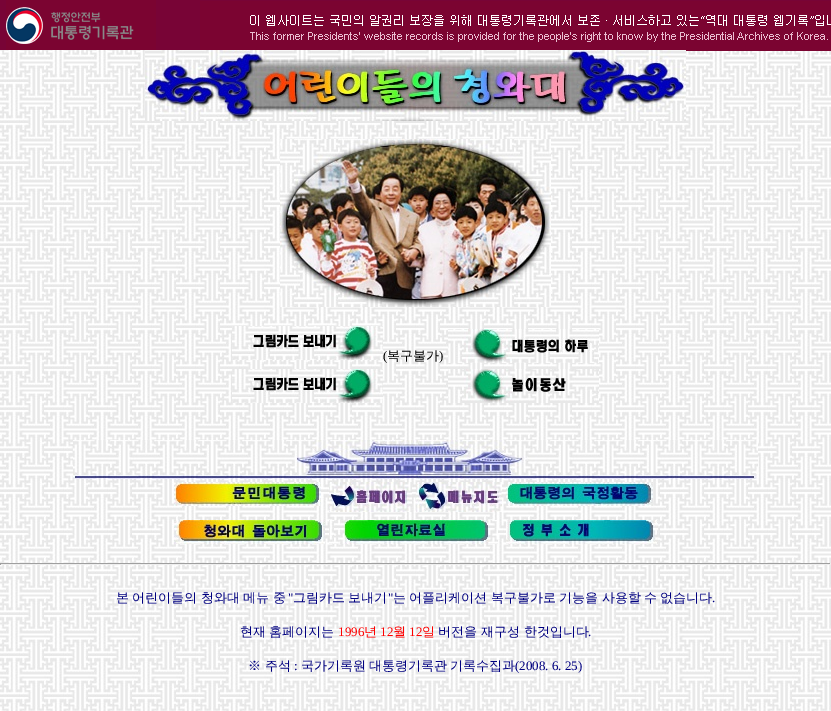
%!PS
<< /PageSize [831 711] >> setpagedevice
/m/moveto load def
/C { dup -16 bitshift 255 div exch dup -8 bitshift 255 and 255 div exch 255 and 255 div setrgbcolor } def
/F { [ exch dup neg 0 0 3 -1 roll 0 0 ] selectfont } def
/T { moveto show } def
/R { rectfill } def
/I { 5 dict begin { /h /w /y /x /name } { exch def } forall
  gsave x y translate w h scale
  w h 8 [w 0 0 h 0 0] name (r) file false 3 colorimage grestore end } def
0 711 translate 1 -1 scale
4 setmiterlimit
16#FFFFFF C
0 0 831 711 R
(1.rgb) 0 50 831 661 I
16#780436 C
0 0 831 50 R
(2.rgb) 6 0 150 50 I
(3.rgb) 200 1 631 50 I
(4.rgb) 145 50 541 71 I
(5.rgb) 280 139 271 168 I
(6.rgb) 232 326 151 34 I
/LiberationSerif-Regular 13 F
16#000000 C
(\() 383 360 T
/WenQuanYiZenHei-Medium 13 F
(복구불가) 387 360 T
/LiberationSerif-Regular 13 F
(\)) 439 360 T
(7.rgb) 448 329 151 34 I
(6.rgb) 232 369 151 34 I
(8.rgb) 448 369 151 34 I
(9.rgb) 73 440 685 39 I
(10.rgb) 174 482 147 24 I
(11.rgb) 329 482 83 30 I
(12.rgb) 416 482 86 30 I
(13.rgb) 506 482 147 24 I
(14.rgb) 174 520 151 24 I
(15.rgb) 329 520 169 24 I
(16.rgb) 506 520 152 24 I
16#9F9F9F C
0 563 831 1 R
16#EEEEEE C
830 563 1 2 R
0 564 831 1 R
16#9F9F9F C
0 563 1 2 R
/WenQuanYiZenHei-Medium 13 F
16#000080 C
116 602 m -.5 0 32 (본 어린이들의 청와대 메뉴 중) widthshow
/LiberationSerif-Regular 13 F
(") 288 602 T
/WenQuanYiZenHei-Medium 13 F
293 602 m -.5 0 32 (그림카드 보내기) widthshow
/LiberationSerif-Regular 13 F
(") 388 602 T
/WenQuanYiZenHei-Medium 13 F
393 602 m -.5 0 32 (는 어플리케이션 복구불가로 기능을 사용할 수 없습니다) widthshow
/LiberationSerif-Regular 13 F
(.) 712 602 T
/WenQuanYiZenHei-Medium 13 F
240 636 m -1 0 32 (현재 홈페이지는) widthshow
/LiberationSerif-Regular 13 F
16#FF0000 C
(1996) 338 636 T
/WenQuanYiZenHei-Medium 13 F
(년) 364 636 T
/LiberationSerif-Regular 13 F
(12) 380 636 T
/WenQuanYiZenHei-Medium 13 F
(월) 393 636 T
/LiberationSerif-Regular 13 F
(12) 409 636 T
/WenQuanYiZenHei-Medium 13 F
(일) 422 636 T
16#000080 C
(버전을 재구성 한것입니다) 438 636 T
/LiberationSerif-Regular 13 F
(.) 588 636 T
/WenQuanYiZenHei-Medium 13 F
(※) 248 670 T
(주석) 265 670 T
/LiberationSerif-Regular 13 F
(:) 294 670 T
/WenQuanYiZenHei-Medium 13 F
(국가기록원) 301 670 T
(대통령기록관) 369 670 T
(기록수집과) 450 670 T
/LiberationSerif-Regular 13 F
(\(2008. 6. 25\)) 515 670 T
showpage
